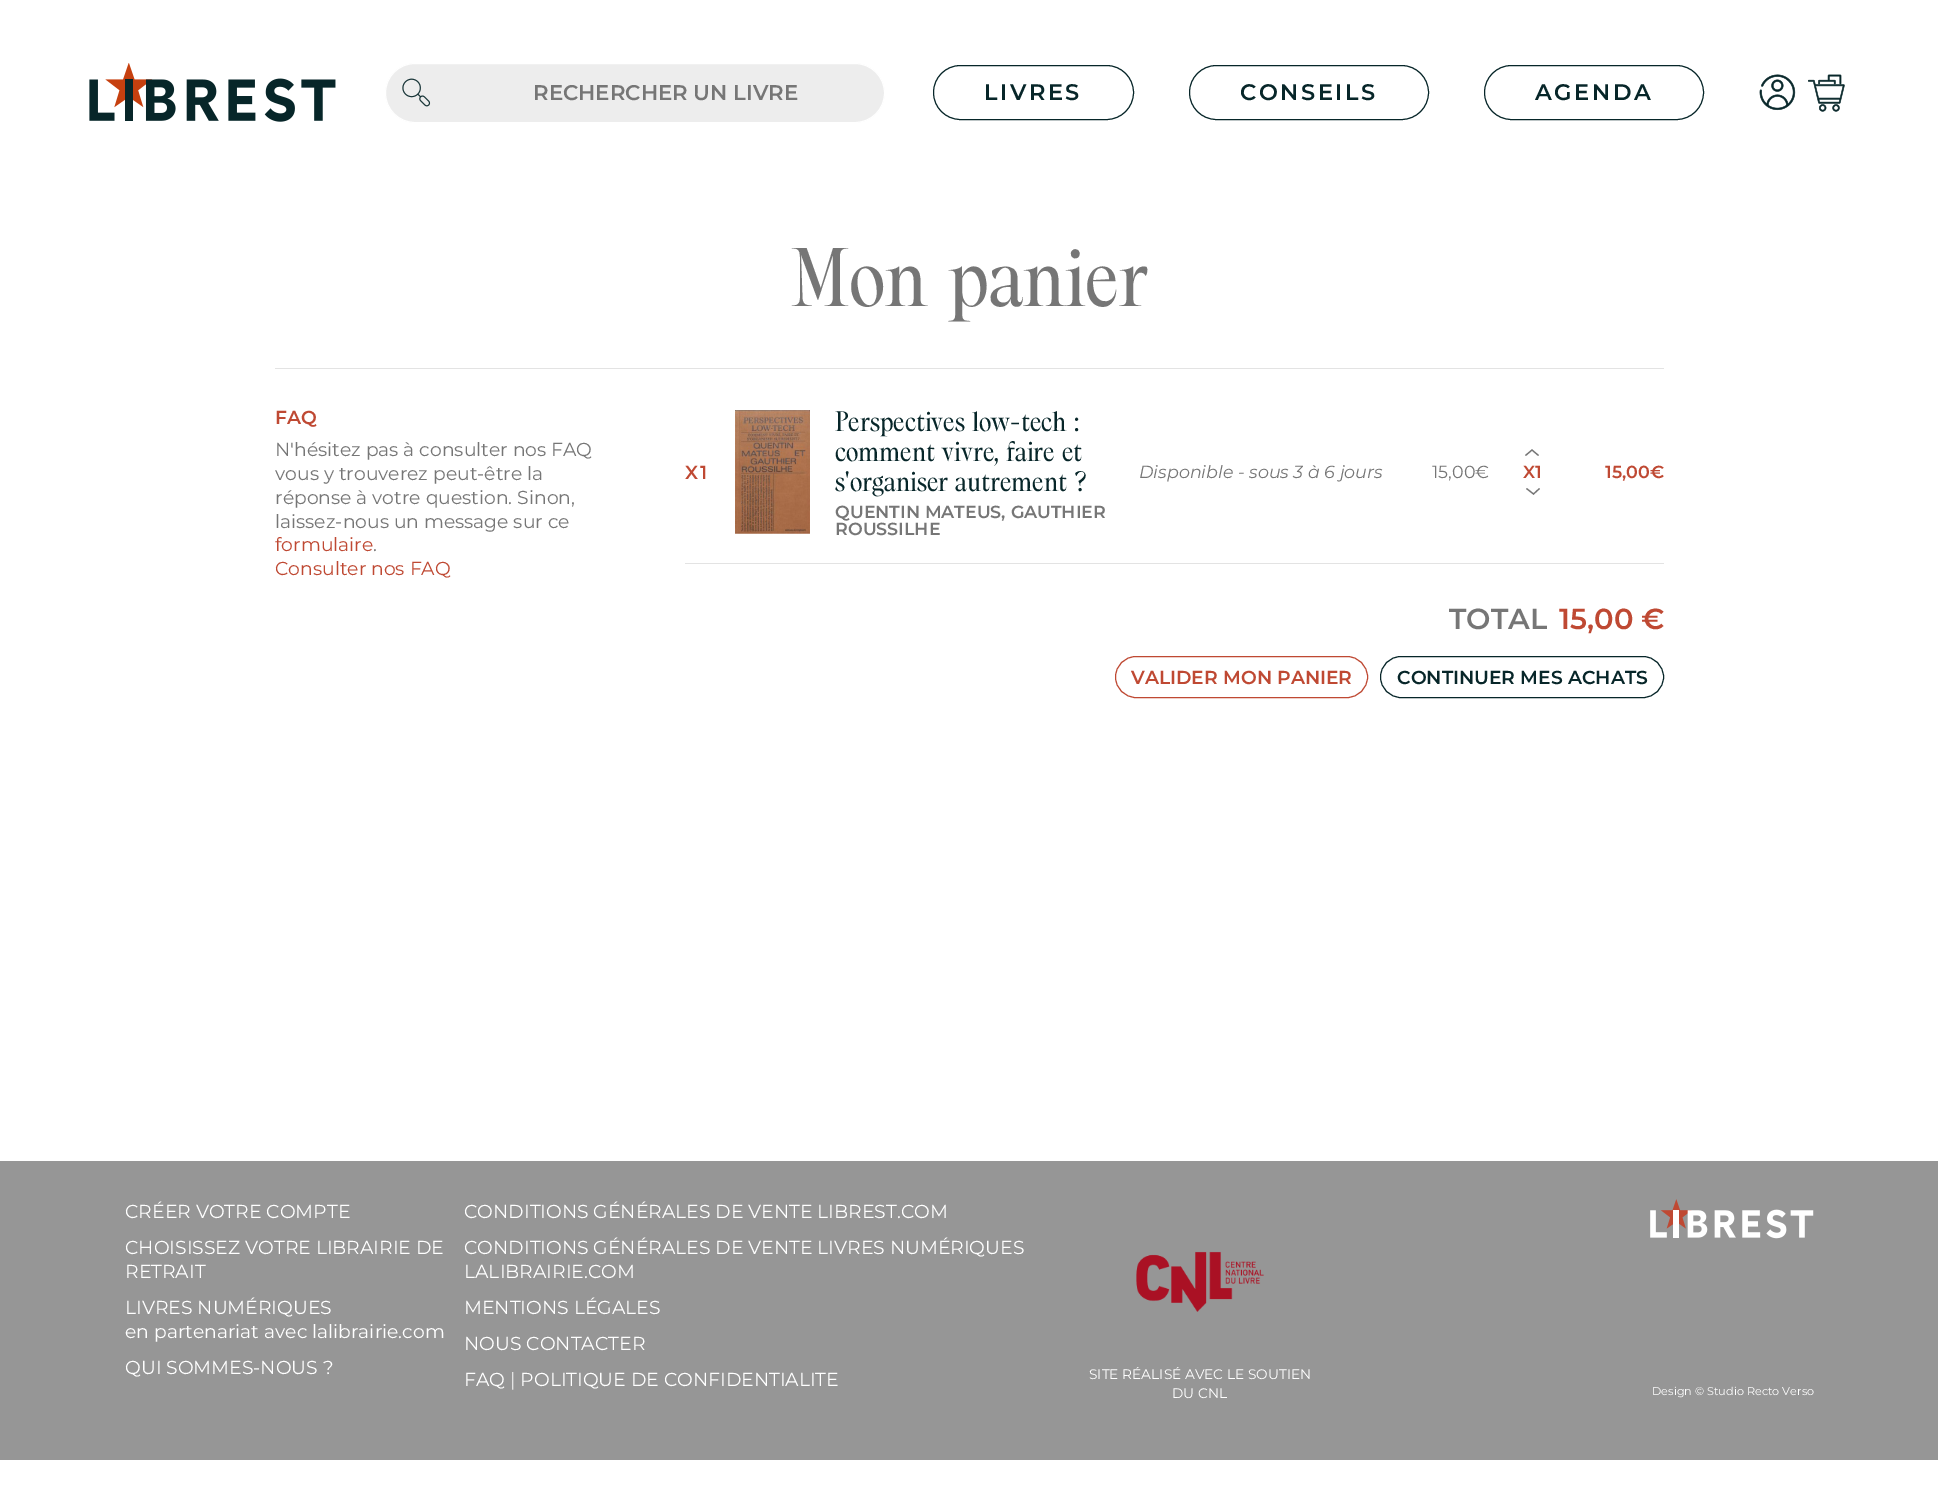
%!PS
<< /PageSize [1938 1509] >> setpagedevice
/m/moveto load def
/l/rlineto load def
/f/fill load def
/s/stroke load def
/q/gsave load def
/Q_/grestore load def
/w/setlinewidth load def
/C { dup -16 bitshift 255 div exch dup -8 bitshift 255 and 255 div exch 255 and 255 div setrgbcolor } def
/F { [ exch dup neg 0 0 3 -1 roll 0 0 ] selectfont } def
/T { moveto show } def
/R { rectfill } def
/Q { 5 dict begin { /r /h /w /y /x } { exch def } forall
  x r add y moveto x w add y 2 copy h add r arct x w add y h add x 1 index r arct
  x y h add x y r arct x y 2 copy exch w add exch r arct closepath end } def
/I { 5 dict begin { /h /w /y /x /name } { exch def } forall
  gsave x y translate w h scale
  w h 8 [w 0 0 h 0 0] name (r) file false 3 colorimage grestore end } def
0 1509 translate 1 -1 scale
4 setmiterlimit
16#FFFFFF C
0 0 1938 1509 R
(1.rgb) 89 63 247 59 I
16#EDEDED C
385.5 63.5 499 59 29.5 Q q f Q_
16#FFFFFF C
s
(2.rgb) 402 78 29 29 I
/Montserrat-SemiBold 21.25 F
16#767676 C
(RECHERCHER UN LIVRE) 533 100 T
16#072629 C
933.5 65.5 200 54 27 Q s
/Montserrat-SemiBold 22.5 F
984 100 m 2.5 0 (LIVRES) ashow
1189.5 65.5 239 54 27 Q s
1240 100 m 2.5 0 (CONSEILS) ashow
1484.5 65.5 219 54 27 Q s
1535 100 m 2.5 0 (AGENDA) ashow
(3.rgb) 1759 74 37 37 I
(4.rgb) 1808 74 37 38 I
16#E3E3E3 C
275 368 1389 1 R
/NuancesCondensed-Medium 77.5 F
16#767676 C
(Mon panier) 791 306 T
/Montserrat-SemiBold 18.75 F
16#BF4933 C
(FAQ) 275 424 T
/Montserrat-Regular 18.75 F
16#767676 C
(N'hésitez pas à consulter nos FAQ) 275 456 T
(vous y trouverez peut-être la) 275 480 T
(réponse à votre question. Sinon,) 275 504 T
(laissez-nous un message sur ce) 275 528 T
16#BF4933 C
(formulaire) 275 551 T
16#767676 C
(.) 373 551 T
16#BF4933 C
(Consulter nos FAQ) 275 575 T
16#E3E3E3 C
685 563 979 1 R
/Montserrat-SemiBold 18.75 F
16#BF4933 C
685 479 m 2.5 0 (X1) ashow
(5.rgb) 735 410 75 124 I
/NuancesCondensed-Medium 26.25 F
16#072629 C
(Perspectives low-tech :) 835 431 T
(comment vivre, faire et) 835 461 T
(s'organiser autrement ?) 835 491 T
/Montserrat-SemiBold 17.5 F
16#767676 C
(QUENTIN MATEUS, GAUTHIER) 835 518 T
(ROUSSILHE) 835 535 T
/Montserrat-Italic 17.5 F
(Disponible - sous 3 à 6 jours) 1139 478 T
/Montserrat-Regular 17.5 F
(15,00€) 1432 478 T
1.2 w
1538.5 455.5 m -6.5 -5.5 l -6.5 5.5 l s
/Montserrat-SemiBold 17.5 F
16#BF4933 C
(X1) 1523 478 T
16#767676 C
1539.5 488.5 m -6 5.5 l -7 -5.5 l s
16#BF4933 C
(15,00€) 1605 478 T
/Montserrat-SemiBold 29 F
16#767676 C
(TOTAL) 1449 629 T
16#BF4933 C
(15,00 €) 1559 629 T
1 w
1115.5 656.5 252 41 20.5 Q s
/Montserrat-SemiBold 18.75 F
(VALIDER MON PANIER) 1131 684 T
16#072629 C
1380.5 656.5 283 41 20.5 Q s
(CONTINUER MES ACHATS) 1397 684 T
16#969696 C
0 1161 1938 299 R
/Montserrat-Regular 18.75 F
16#FFFFFF C
(CRÉER VOTRE COMPTE) 125 1218 T
(CHOISISSEZ VOTRE LIBRAIRIE DE) 125 1254 T
(RETRAIT) 125 1278 T
(LIVRES NUMÉRIQUES) 125 1314 T
(en partenariat avec lalibrairie.com) 125 1338 T
(QUI SOMMES-NOUS ?) 125 1374 T
(CONDITIONS GÉNÉRALES DE VENTE LIBREST.COM) 464 1218 T
(CONDITIONS GÉNÉRALES DE VENTE LIVRES NUMÉRIQUES) 464 1254 T
(LALIBRAIRIE.COM) 464 1278 T
(MENTIONS LÉGALES) 464 1314 T
(NOUS CONTACTER) 464 1350 T
(FAQ | POLITIQUE DE CONFIDENTIALITE) 464 1386 T
(6.rgb) 1136 1251 128 61 I
/Montserrat-Regular 13.75 F
(SITE RÉALISÉ AVEC LE SOUTIEN) 1089 1379 T
(DU CNL) 1172 1398 T
(7.rgb) 1650 1199 164 40 I
/Montserrat-Regular 11.25 F
(Design © Studio Recto Verso) 1652 1395 T
showpage
